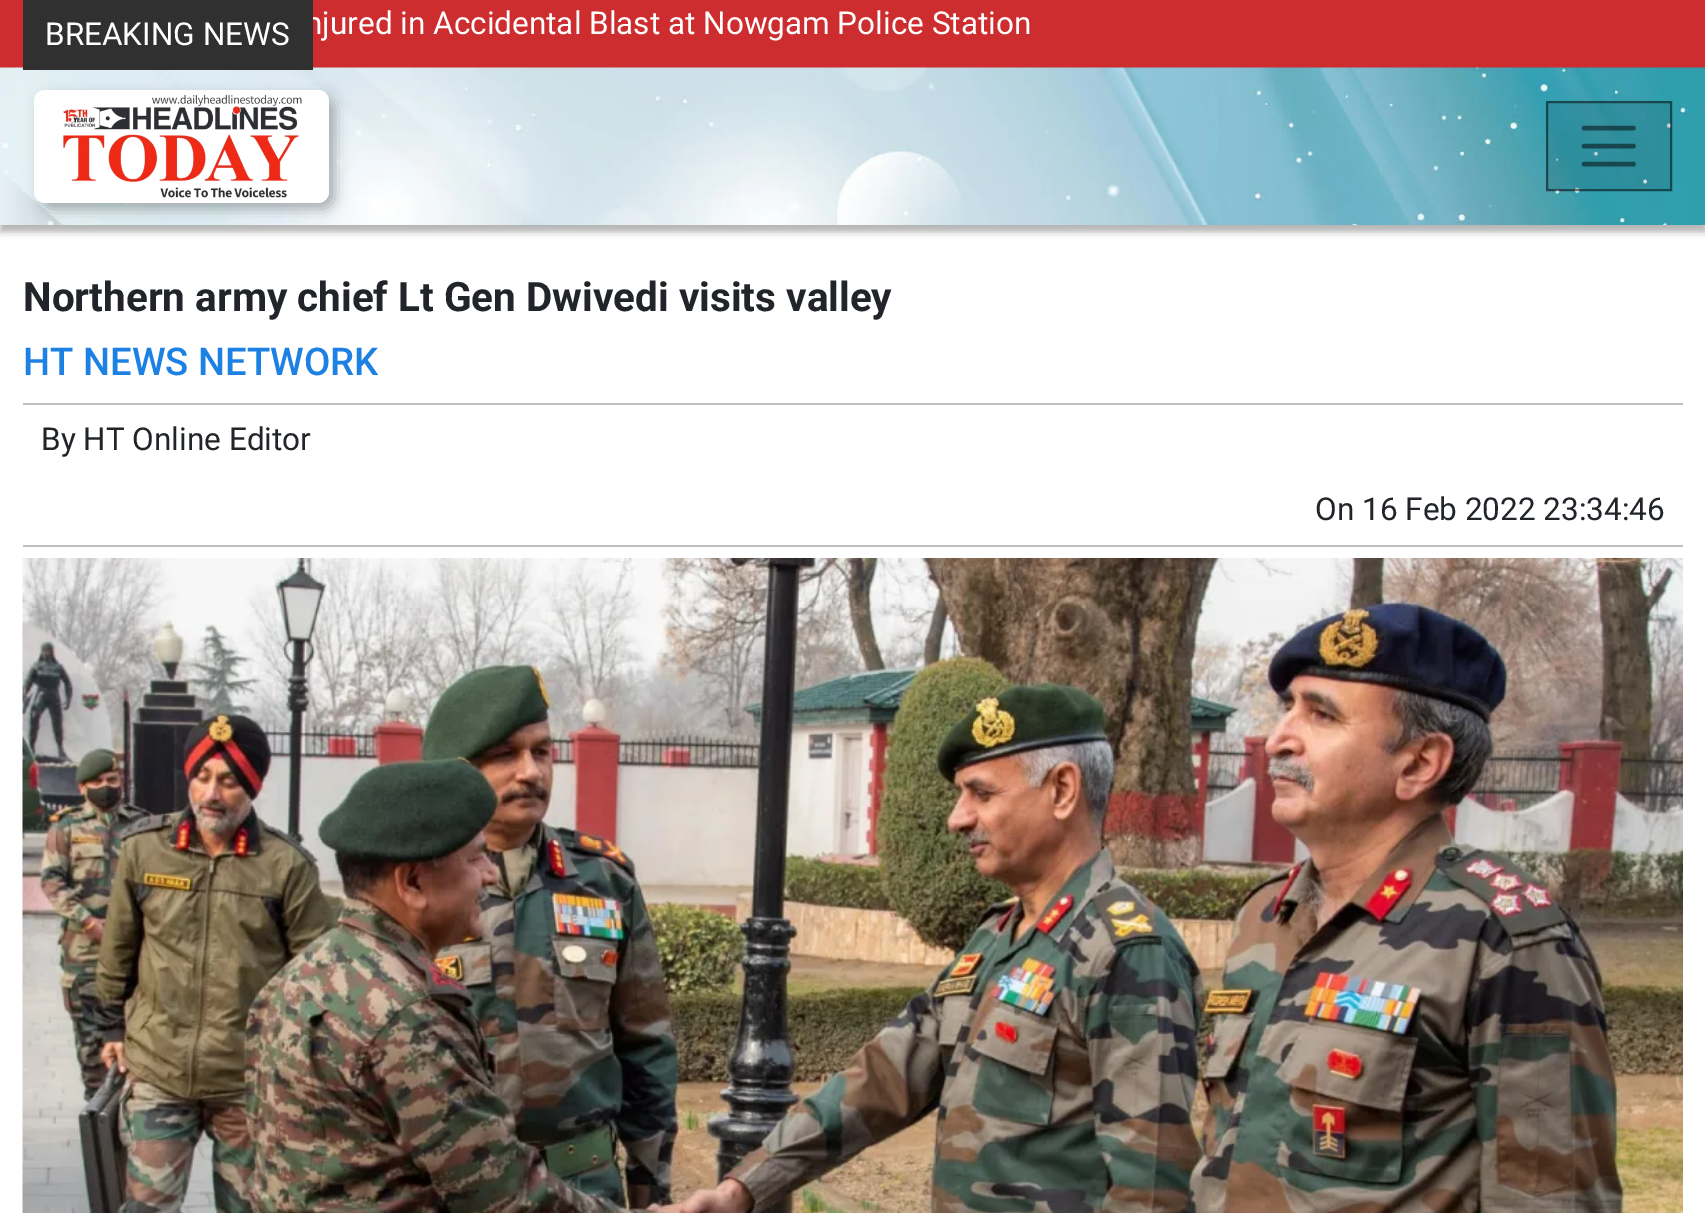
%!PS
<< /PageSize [1705 1213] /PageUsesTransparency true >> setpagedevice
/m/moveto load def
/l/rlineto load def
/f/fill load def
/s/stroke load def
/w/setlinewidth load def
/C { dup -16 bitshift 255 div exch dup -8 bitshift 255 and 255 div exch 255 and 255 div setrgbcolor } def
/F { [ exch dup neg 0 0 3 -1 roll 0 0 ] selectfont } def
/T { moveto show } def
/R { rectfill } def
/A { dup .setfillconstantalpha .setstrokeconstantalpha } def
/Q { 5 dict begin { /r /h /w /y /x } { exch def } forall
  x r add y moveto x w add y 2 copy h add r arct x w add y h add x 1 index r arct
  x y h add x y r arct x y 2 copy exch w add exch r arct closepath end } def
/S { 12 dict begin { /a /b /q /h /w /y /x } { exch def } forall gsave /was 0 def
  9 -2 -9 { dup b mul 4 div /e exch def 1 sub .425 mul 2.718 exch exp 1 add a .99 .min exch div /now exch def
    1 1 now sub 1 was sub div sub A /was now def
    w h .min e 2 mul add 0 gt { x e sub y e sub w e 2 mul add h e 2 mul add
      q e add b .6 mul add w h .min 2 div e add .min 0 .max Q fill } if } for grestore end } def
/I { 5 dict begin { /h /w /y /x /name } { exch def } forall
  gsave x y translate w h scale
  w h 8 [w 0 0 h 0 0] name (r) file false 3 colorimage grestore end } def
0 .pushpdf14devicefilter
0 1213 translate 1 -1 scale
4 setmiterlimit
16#FFFFFF C
0 0 1705 1213 R
16#000000 C
0 7 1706 225 0 3.5 .3 S
16#CD2D2F C
0 0 1705 68 R
/Roboto-Regular 31.5 F
16#FFFFFF C
(njured in Accidental Blast at Nowgam Police Station) 305 34 T
(1.rgb) 0 67 1705 158 I
16#303030 C
23 0 290 70 R
16#FFFFFF C
(BREAKING NEWS) 45 45 T
16#000000 C
41 97 294 112 11 7 .3 S
16#FFFFFF C
34 90 295 113 11 Q f
(2.rgb) 63 94 239 104 I
0.1 A
16#000000 C
1546 101 126 90 R
0.5 A
2 w
1547 102 124 88 rectstroke
4.5 w
1 setlinecap
1584 128 m 49.5 0 l 1584 146 m 49.5 0 l 1584 164 m 49.5 0 l s
/Roboto-Bold 40.5 F
1 A
16#212529 C
(Northern army chief Lt Gen Dwivedi visits valley) 23 311 T
/Roboto-Medium 38.25 F
16#1D81E3 C
(HT NEWS NETWORK) 23 375 T
16#C0C0C0 C
23 403 1660 2 R
23 545 1660 2 R
/Roboto-Regular 31.5 F
16#212529 C
(By HT Online Editor) 41 450 T
(On 16 Feb 2022 23:34:46) 1315 520 T
(3.rgb) 22 558 1661 655 I
.poppdf14devicefilter showpage
